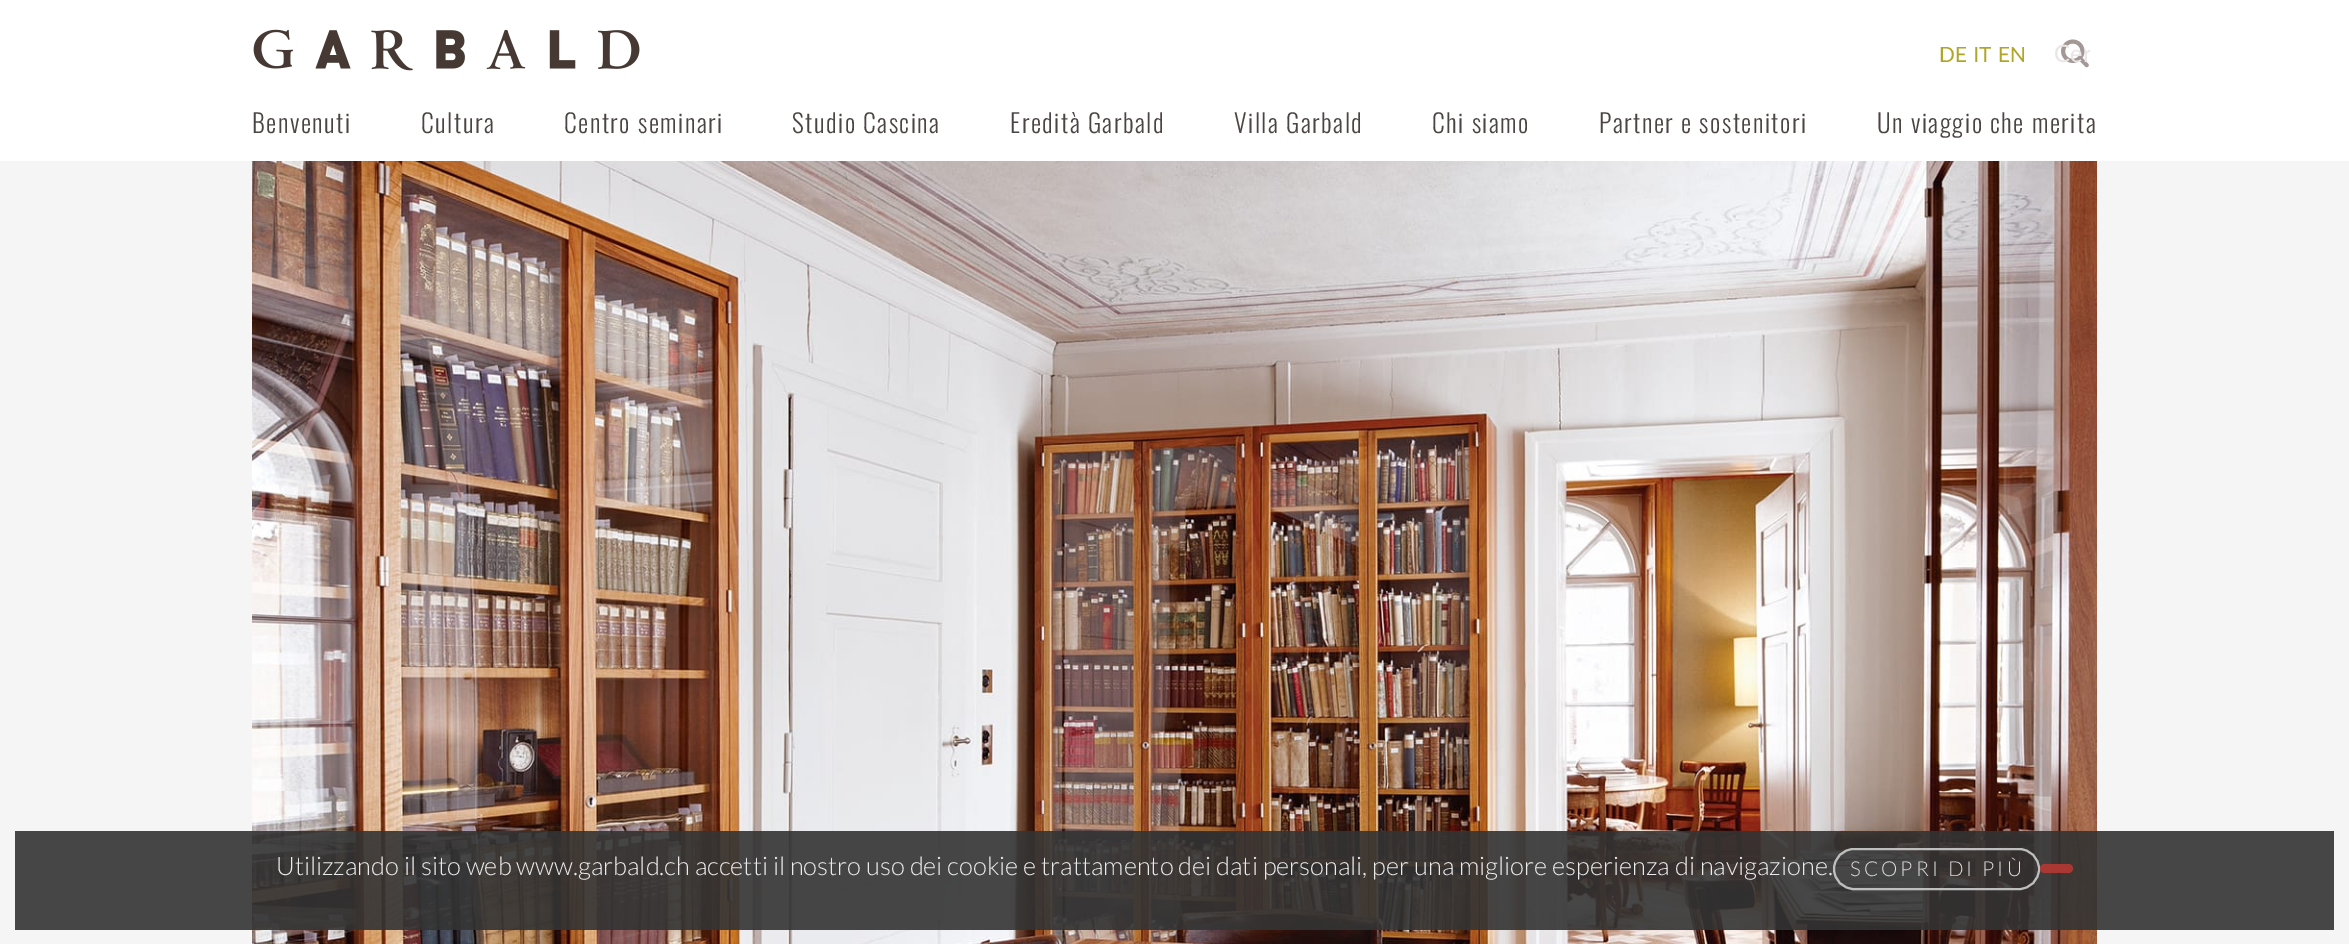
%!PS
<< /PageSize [2349 944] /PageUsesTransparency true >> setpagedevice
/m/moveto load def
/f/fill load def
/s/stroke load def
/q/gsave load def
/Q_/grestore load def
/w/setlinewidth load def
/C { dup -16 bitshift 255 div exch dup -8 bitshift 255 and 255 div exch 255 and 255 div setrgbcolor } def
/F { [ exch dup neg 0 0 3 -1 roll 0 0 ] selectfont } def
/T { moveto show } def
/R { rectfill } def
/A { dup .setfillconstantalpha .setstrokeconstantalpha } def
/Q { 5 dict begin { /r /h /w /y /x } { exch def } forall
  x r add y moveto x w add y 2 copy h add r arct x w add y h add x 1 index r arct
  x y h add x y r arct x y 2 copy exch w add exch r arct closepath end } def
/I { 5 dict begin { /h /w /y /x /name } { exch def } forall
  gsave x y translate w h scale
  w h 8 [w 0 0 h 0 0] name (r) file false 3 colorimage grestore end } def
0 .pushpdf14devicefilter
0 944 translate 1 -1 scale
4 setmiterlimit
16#F5F5F5 C
0 0 2349 944 R
16#FFFFFF C
0 0 2349 161 R
(1.rgb) 253 29 387 42 I
/Lato-Regular 21 F
16#B0A529 C
(DE) 1939 62 T
(IT) 1973 62 T
(EN) 1998 62 T
(2.rgb) 2061 39 28 29 I
q
2054 39 36 29 rectclip
/Lato-Regular 24 F
16#E9E6E5 C
(Cer) 2054 62 T
Q_
/Oswald-Light 25.5 F
16#4A4442 C
252 133 m 1.5 0 (Benvenuti) ashow
421 133 m 1.5 0 (Cultura) ashow
564 133 m 1.5 0 (Centro seminari) ashow
792 133 m 1.5 0 (Studio Cascina) ashow
1010 133 m 1.5 0 (Eredità Garbald) ashow
1234 133 m 1.5 0 (Villa Garbald) ashow
1432 133 m 1.5 0 (Chi siamo) ashow
1599 133 m 1.5 0 (Partner e sostenitori) ashow
1877 133 m 1.5 0 (Un viaggio che merita) ashow
(3.rgb) 252 161 1845 783 I
0.9 A
16#333333 C
15 831 2319 99 R
/Lato-Light 25.5 F
1 A
16#ECEBEB C
(Utilizzando il sito web www.garbald.ch accetti il nostro uso dei cookie e trattamento dei dati personali, per una migliore esperienza di navigazione.) 276 875 T
0.9 A
16#CCCCCC C
2 w
1834 849 205 40 20 Q s
/Lato-Light 20.5 F
1 A
16#DCDCDC C
1850 876 m 3 0 (SCOPRI DI PIÙ) ashow
0.9 A
16#B53732 C
2040 864 33 9 4.5 Q f
.poppdf14devicefilter showpage
